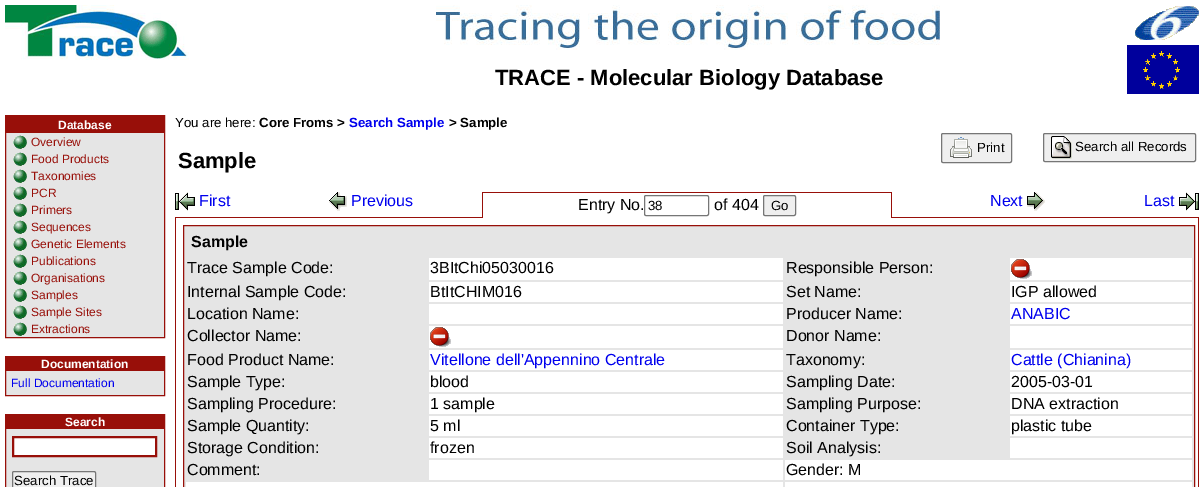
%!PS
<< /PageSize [1204 487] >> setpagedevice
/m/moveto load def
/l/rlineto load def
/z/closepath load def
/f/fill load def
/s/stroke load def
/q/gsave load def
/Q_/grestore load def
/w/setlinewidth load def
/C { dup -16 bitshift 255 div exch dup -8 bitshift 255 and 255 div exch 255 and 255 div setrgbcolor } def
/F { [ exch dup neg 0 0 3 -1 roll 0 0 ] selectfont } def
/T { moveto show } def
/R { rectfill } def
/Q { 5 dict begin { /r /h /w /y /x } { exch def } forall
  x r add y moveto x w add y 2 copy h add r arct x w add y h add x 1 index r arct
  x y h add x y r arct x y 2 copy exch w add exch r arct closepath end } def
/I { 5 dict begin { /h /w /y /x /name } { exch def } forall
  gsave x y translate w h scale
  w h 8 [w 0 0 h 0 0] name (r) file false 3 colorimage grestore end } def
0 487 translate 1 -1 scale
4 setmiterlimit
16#FFFFFF C
0 0 1204 487 R
(1.rgb) 5 5 184 55 I
(2.rgb) 436 5 504 45 I
/LiberationSans-Bold 22 F
16#000000 C
(TRACE - Molecular Biology Database) 495 85 T
(3.rgb) 1135 6 64 34 I
(4.rgb) 1127 45 72 49 I
16#E5E5E5 C
6 133 158 204 R
16#980F09 C
5.5 115.5 159 222 rectstroke
6 116 158 17 R
/LiberationSans-Bold 12 F
16#FFFFFF C
(Database) 58 129 T
(5.rgb) 13 135 14 14 I
/LiberationSans-Regular 12 F
16#980F09 C
(Overview) 31 146 T
(5.rgb) 13 152 14 14 I
(Food Products) 31 163 T
(5.rgb) 13 169 14 14 I
(Taxonomies) 31 180 T
(5.rgb) 13 186 14 14 I
(PCR) 31 197 T
(5.rgb) 13 203 14 14 I
(Primers) 31 214 T
(5.rgb) 13 220 14 14 I
(Sequences) 31 231 T
(5.rgb) 13 237 14 14 I
(Genetic Elements) 31 248 T
(5.rgb) 13 254 14 14 I
(Publications) 31 265 T
(5.rgb) 13 271 14 14 I
(Organisations) 31 282 T
(5.rgb) 13 288 14 14 I
(Samples) 31 299 T
(5.rgb) 13 305 14 14 I
(Sample Sites) 31 316 T
(5.rgb) 13 322 14 14 I
(Extractions) 31 333 T
16#E5E5E5 C
6 371 158 24 R
16#980F09 C
5.5 356.5 159 39 rectstroke
6 357 158 14 R
/LiberationSans-Bold 12 F
16#FFFFFF C
(Documentation) 41 368 T
/LiberationSans-Regular 12 F
16#0000EE C
(Full Documentation) 11 387 T
16#E5E5E5 C
6 429 158 58 R
16#980F09 C
5.5 414.5 159 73 rectstroke
6 415 158 14 R
/LiberationSans-Bold 12 F
16#FFFFFF C
(Search) 65 426 T
13 437 m 143 0 l 0 19 l -143 0 l z q f Q_
16#980F09 C
2 w
s
16#EFEFEF C
12.5 471.5 83 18 1.5 Q q f Q_
16#767676 C
1 w
s
/LiberationSans-Regular 13.25 F
16#000000 C
(Search Trace) 14 485 T
(You are here:) 175 127 T
/LiberationSans-Bold 13.25 F
(Core Froms >) 259 127 T
16#0000EE C
(Search Sample) 349 127 T
16#000000 C
(> Sample) 449 127 T
16#EFEFEF C
941.5 133.5 70 29 1.5 Q q f Q_
16#767676 C
s
(6.rgb) 950 137 22 21 I
/LiberationSans-Regular 13.25 F
16#000000 C
(Print) 977 152 T
16#EFEFEF C
1043.5 133.5 152 28 1.5 Q q f Q_
16#767676 C
s
(7.rgb) 1051 136 21 23 I
16#000000 C
(Search all Records) 1075 151 T
/LiberationSans-Bold 22 F
(Sample) 178 168 T
16#980F09 C
175 217 307 1 R
(8.rgb) 175 192 20 19 I
/LiberationSans-Regular 16 F
16#0000EE C
(First) 199 206 T
(9.rgb) 329 192 18 19 I
(Previous) 351 206 T
16#980F09 C
482 192 410 1 R
891 192 1 26 R
482 192 1 26 R
16#000000 C
(Entry No.) 578 210 T
16#767676 C
644.5 195.5 64 20 1.5 Q s
/LiberationSans-Regular 13.25 F
16#000000 C
(38) 648 210 T
/LiberationSans-Regular 16 F
(of 404) 714 210 T
16#EFEFEF C
763.5 195.5 32 20 1.5 Q q f Q_
16#767676 C
s
/LiberationSans-Regular 13.25 F
16#000000 C
(Go) 771 210 T
16#980F09 C
892 217 307 1 R
/LiberationSans-Regular 16 F
16#0000EE C
(Next) 990 206 T
(10.rgb) 1027 192 18 19 I
(Last) 1144 206 T
(11.rgb) 1179 192 20 19 I
16#980F09 C
1198 218 1 269 R
175 218 1 269 R
16#E5E5E5 C
183.5 225.5 m 1011 0 l 0 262 l -1011 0 l z q f Q_
16#980F09 C
s
/LiberationSans-Bold 16 F
16#000000 C
(Sample) 191 247 T
/LiberationSans-Regular 16 F
(Trace Sample Code:) 187 273 T
16#FFFFFF C
429 258 354 22 R
16#000000 C
(3BItChi05030016) 430 273 T
(Responsible Person:) 786 273 T
16#FFFFFF C
1010 258 182 22 R
(12.rgb) 1011 259 21 20 I
16#000000 C
(Internal Sample Code:) 187 297 T
16#FFFFFF C
429 282 354 20 R
16#000000 C
(BtItCHIM016) 430 297 T
(Set Name:) 786 297 T
16#FFFFFF C
1010 282 182 20 R
16#000000 C
(IGP allowed) 1011 297 T
(Location Name:) 187 319 T
16#FFFFFF C
429 304 354 20 R
16#000000 C
(Producer Name:) 786 319 T
16#FFFFFF C
1010 304 182 20 R
16#0000EE C
(ANABIC) 1011 319 T
16#000000 C
(Collector Name:) 187 341 T
16#FFFFFF C
429 326 354 22 R
(12.rgb) 430 327 21 20 I
16#000000 C
(Donor Name:) 786 341 T
16#FFFFFF C
1010 326 182 22 R
16#000000 C
(Food Product Name:) 187 365 T
16#FFFFFF C
429 350 354 20 R
16#0000EE C
(Vitellone dell'Appennino Centrale) 430 365 T
16#000000 C
(Taxonomy:) 786 365 T
16#FFFFFF C
1010 350 182 20 R
16#0000EE C
(Cattle \(Chianina\)) 1011 365 T
16#000000 C
(Sample Type:) 187 387 T
16#FFFFFF C
429 372 354 20 R
16#000000 C
(blood) 430 387 T
(Sampling Date:) 786 387 T
16#FFFFFF C
1010 372 182 20 R
16#000000 C
(2005-03-01) 1011 387 T
(Sampling Procedure:) 187 409 T
16#FFFFFF C
429 394 354 20 R
16#000000 C
(1 sample) 430 409 T
(Sampling Purpose:) 786 409 T
16#FFFFFF C
1010 394 182 20 R
16#000000 C
(DNA extraction) 1011 409 T
(Sample Quantity:) 187 431 T
16#FFFFFF C
429 416 354 20 R
16#000000 C
(5 ml) 430 431 T
(Container Type:) 786 431 T
16#FFFFFF C
1010 416 182 20 R
16#000000 C
(plastic tube) 1011 431 T
(Storage Condition:) 187 453 T
16#FFFFFF C
429 438 354 20 R
16#000000 C
(frozen) 430 453 T
(Soil Analysis:) 786 453 T
16#FFFFFF C
1010 438 182 20 R
16#000000 C
(Comment:) 187 475 T
16#FFFFFF C
429 460 354 20 R
785 460 407 20 R
16#000000 C
(Gender: M) 786 475 T
16#FFFFFF C
186 482 597 5 R
785 482 407 5 R
showpage
